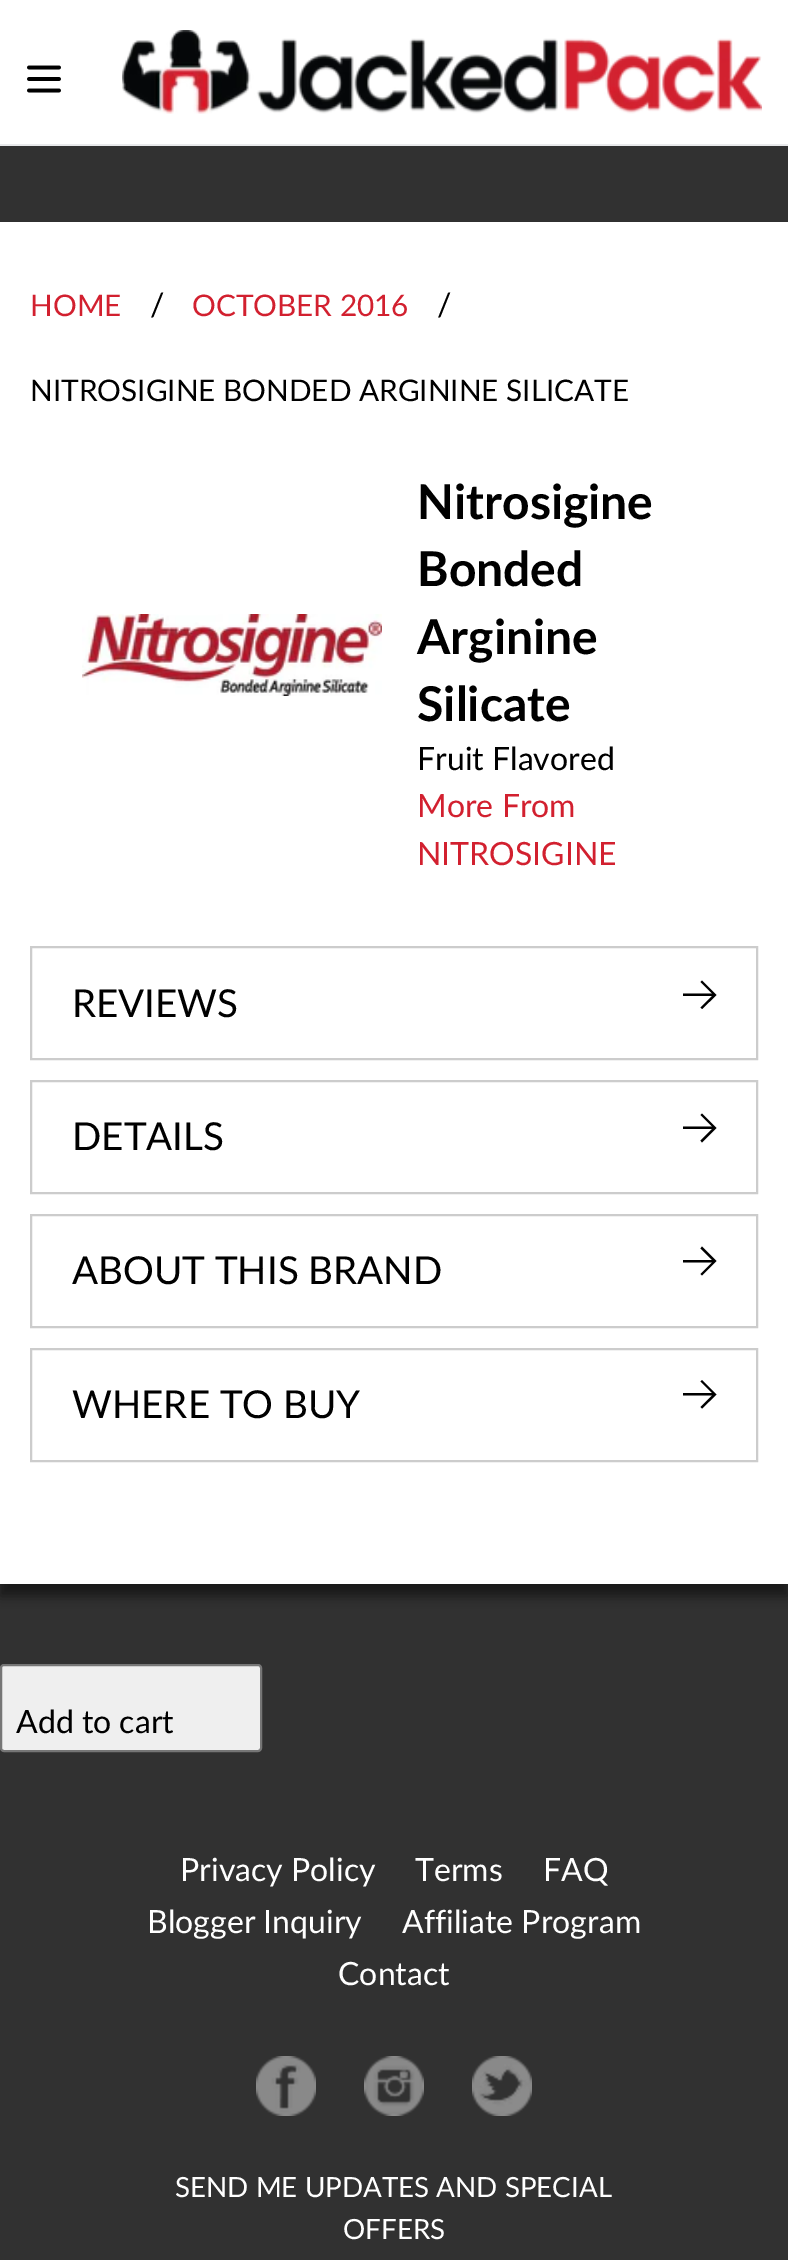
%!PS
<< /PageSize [788 2260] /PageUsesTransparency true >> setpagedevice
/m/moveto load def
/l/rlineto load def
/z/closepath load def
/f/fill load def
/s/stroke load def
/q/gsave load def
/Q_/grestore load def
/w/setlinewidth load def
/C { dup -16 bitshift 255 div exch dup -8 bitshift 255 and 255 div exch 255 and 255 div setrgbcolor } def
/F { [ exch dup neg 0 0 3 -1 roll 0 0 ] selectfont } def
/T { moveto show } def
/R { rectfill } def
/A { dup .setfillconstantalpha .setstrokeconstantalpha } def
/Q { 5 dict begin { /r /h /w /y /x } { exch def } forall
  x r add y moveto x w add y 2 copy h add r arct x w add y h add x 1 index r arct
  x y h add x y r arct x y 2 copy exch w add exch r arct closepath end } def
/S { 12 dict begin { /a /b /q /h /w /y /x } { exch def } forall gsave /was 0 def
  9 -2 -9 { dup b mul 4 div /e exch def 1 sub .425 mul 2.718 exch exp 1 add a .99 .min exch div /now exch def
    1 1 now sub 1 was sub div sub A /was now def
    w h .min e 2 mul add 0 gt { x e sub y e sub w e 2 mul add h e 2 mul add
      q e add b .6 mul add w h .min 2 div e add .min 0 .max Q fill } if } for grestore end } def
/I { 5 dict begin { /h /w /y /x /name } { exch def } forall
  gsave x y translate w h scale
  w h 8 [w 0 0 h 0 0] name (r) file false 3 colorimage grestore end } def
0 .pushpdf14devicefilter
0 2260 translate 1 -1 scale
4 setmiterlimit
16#313131 C
0 0 788 2260 R
16#FFFFFF C
0 0 788 144 R
16#E8E9EB C
0 144 788 2 R
(1.rgb) 27 65 34 28 I
(2.rgb) 122 30 640 84 I
16#000000 C
0 234 788 1362 0 6 .5 S
16#FFFFFF C
0 222 788 1362 R
/Lato-Regular 29.75 F
16#D2202F C
(HOME) 30 316 T
/Lato-Regular 32 F
16#000000 C
(/) 150 316 T
/Lato-Regular 29.75 F
16#D2202F C
(OCTOBER 2016) 192 316 T
/Lato-Regular 32 F
16#000000 C
(/) 437 316 T
/Lato-Regular 29.75 F
(NITROSIGINE BONDED ARGININE SILICATE) 30 401 T
(3.rgb) 82 614 300 82 I
/Lato-Bold 48 F
(Nitrosigine) 417 519 T
(Bonded) 417 586 T
(Arginine) 417 654 T
(Silicate) 417 721 T
/Lato-Regular 32 F
(Fruit Flavored) 417 770 T
16#D2202F C
(More From) 417 817 T
(NITROSIGINE) 417 865 T
16#CCCCCC C
2 w
31 947 726 112 rectstroke
/Lato-Regular 38.5 F
16#000000 C
(REVIEWS) 72 1017 T
702 1009 m 14.5 -14 l -14.5 -14.5 l -1.5 1.5 l 11.5 11.5 l -29 0 l 0 2.5 l 29 0 l -11.5 11.5 l z f
16#CCCCCC C
31 1081 726 112 rectstroke
16#000000 C
(DETAILS) 72 1150 T
702 1142.5 m 14.5 -14.5 l -14.5 -14.5 l -1.5 1.5 l 11.5 11.5 l -29 0 l 0 2.5 l 29 0 l -11.5 11.5 l z f
16#CCCCCC C
31 1215 726 112 rectstroke
16#000000 C
(ABOUT THIS BRAND) 72 1284 T
702 1275.5 m 14.5 -14.5 l -14.5 -14.5 l -1.5 2 l 11.5 11.5 l -29 0 l 0 2.5 l 29 0 l -11.5 11.5 l z f
16#CCCCCC C
31 1349 726 112 rectstroke
16#000000 C
(WHERE TO BUY) 72 1418 T
702 1408.5 m 14.5 -14 l -14.5 -14.5 l -1.5 1.5 l 11.5 11.5 l -29 0 l 0 2.5 l 29 0 l -11.5 11.5 l z f
16#EFEFEF C
1 1665 260 86 3 Q q f Q_
16#767676 C
s
/Lato-Regular 32 F
16#000000 C
(Add to cart) 16 1733 T
16#FFFFFF C
(Privacy Policy) 180 1881 T
(Terms) 415 1881 T
(FAQ) 543 1881 T
(Blogger Inquiry) 147 1933 T
(Affiliate Program) 402 1933 T
(Contact) 338 1985 T
(4.rgb) 256 2056 60 60 I
(5.rgb) 364 2056 60 60 I
(6.rgb) 472 2056 60 60 I
/Lato-Regular 27.8 F
(SEND ME UPDATES AND SPECIAL) 175 2197 T
(OFFERS) 343 2239 T
.poppdf14devicefilter showpage
